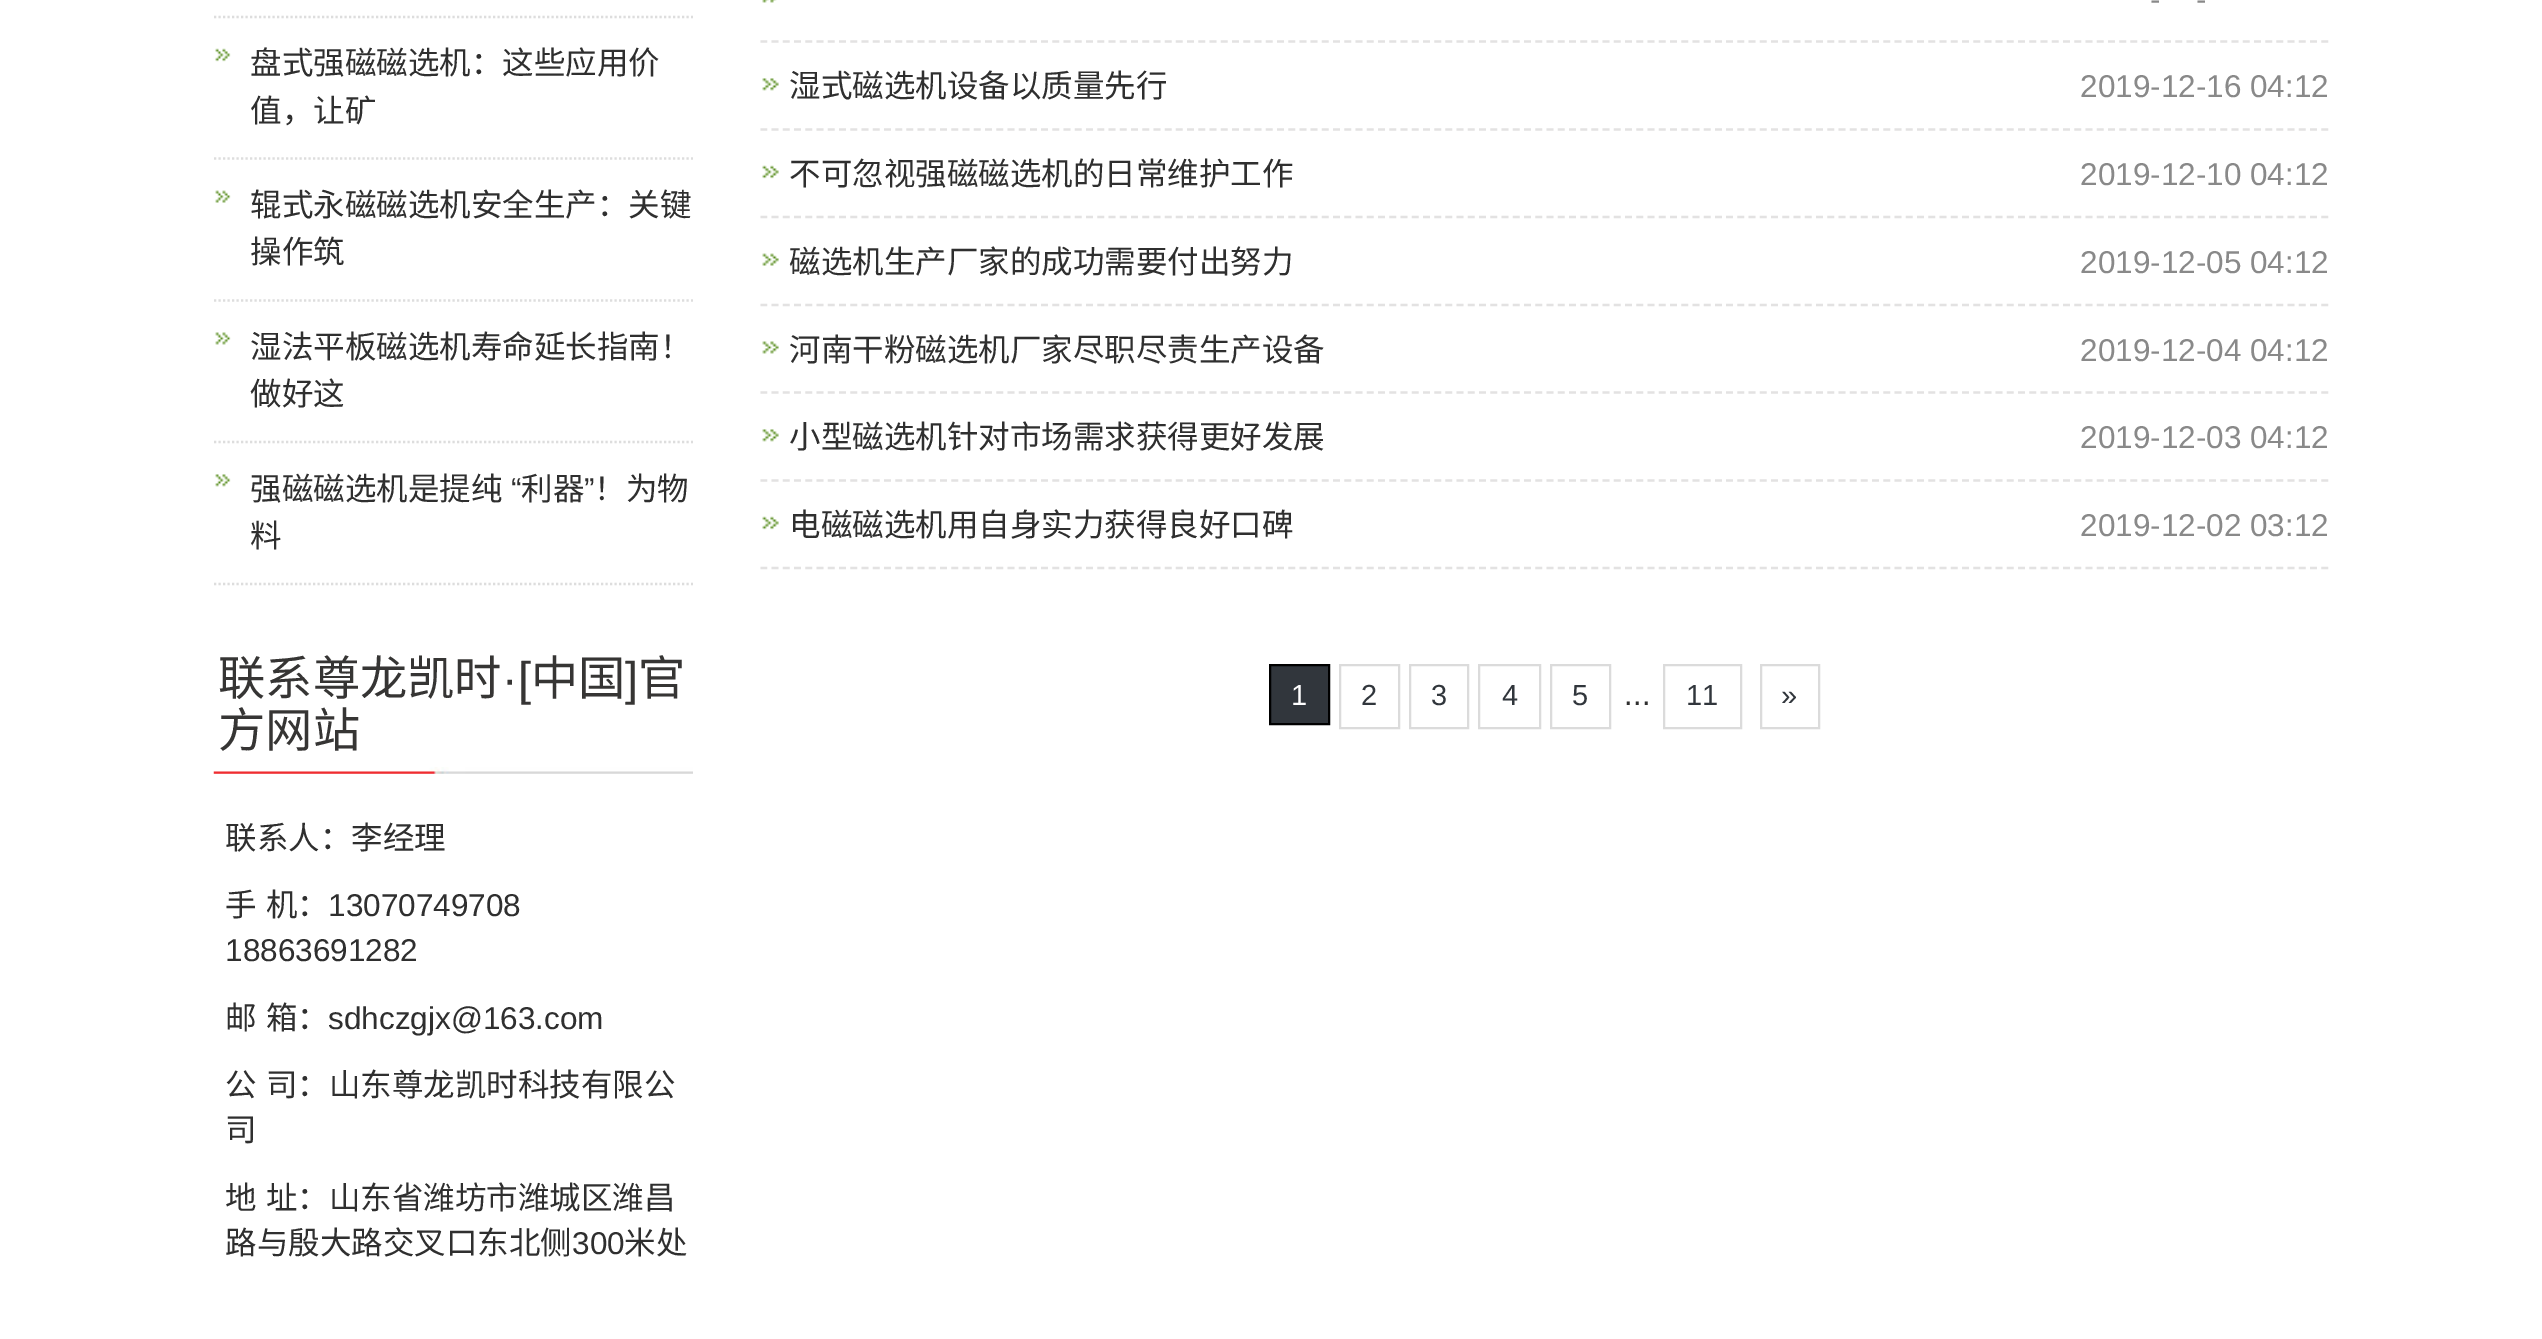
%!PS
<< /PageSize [2542 1339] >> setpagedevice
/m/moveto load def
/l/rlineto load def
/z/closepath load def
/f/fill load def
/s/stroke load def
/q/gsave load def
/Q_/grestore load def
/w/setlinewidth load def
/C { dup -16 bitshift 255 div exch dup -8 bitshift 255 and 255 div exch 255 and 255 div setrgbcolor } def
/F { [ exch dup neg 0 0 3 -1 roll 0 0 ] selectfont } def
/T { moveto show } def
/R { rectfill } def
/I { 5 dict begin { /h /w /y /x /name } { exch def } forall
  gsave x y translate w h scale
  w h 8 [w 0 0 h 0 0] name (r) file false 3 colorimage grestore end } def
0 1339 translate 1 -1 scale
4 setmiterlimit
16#FFFFFF C
0 0 2542 1339 R
16#DDDDDD C
2.2 w
[2.25 2.25] 0 setdash
214 17 m 479 0 l s
(1.rgb) 215 48 16 14 I
214 158.5 m 479 0 l s
/NotoSansCJKSC-Regular 31.5 F
16#2F2F2F C
(盘式强磁磁选机：这些应用价) 250 74 T
(值，让矿) 250 122 T
(2.rgb) 215 190 16 13 I
16#DDDDDD C
214 300.5 m 479 0 l s
16#2F2F2F C
(辊式永磁磁选机安全生产：关键) 250 216 T
(操作筑) 250 263 T
(3.rgb) 215 332 16 13 I
16#DDDDDD C
214 442 m 479 0 l s
16#2F2F2F C
(湿法平板磁选机寿命延长指南！) 250 358 T
(做好这) 250 405 T
(4.rgb) 215 474 16 13 I
16#DDDDDD C
214 584 m 479 0 l s
16#2F2F2F C
(强磁磁选机是提纯) 250 500 T
/LiberationSans-Regular 31.5 F
(“) 511 500 T
/NotoSansCJKSC-Regular 31.5 F
(利器) 521 500 T
/LiberationSans-Regular 31.5 F
(”) 584 500 T
/NotoSansCJKSC-Regular 31.5 F
(！为物) 594 500 T
(料) 250 547 T
(5.rgb) 213 767 480 7 I
/NotoSansCJKSC-Regular 47.25 F
16#363534 C
(联系尊龙凯时) 218 695 T
/LiberationSans-Regular 47.25 F
(·[) 502 695 T
/NotoSansCJKSC-Regular 47.25 F
(中国) 531 695 T
/LiberationSans-Regular 47.25 F
(]) 625 695 T
/NotoSansCJKSC-Regular 47.25 F
(官) 638 695 T
(方网站) 218 747 T
/NotoSansCJKSC-Regular 31.5 F
16#2F2F2F C
(联系人：李经理) 225 849 T
225 916 m 2 0 32 (手 机：) widthshow
/LiberationSans-Regular 31.5 F
(13070749708) 328 916 T
(18863691282) 225 961 T
/NotoSansCJKSC-Regular 31.5 F
225 1029 m 2 0 32 (邮 箱：) widthshow
/LiberationSans-Regular 31.5 F
(sdhczgjx@163.com) 328 1029 T
/NotoSansCJKSC-Regular 31.5 F
225 1096 m 2 0 32 (公 司：山东尊龙凯时科技有限公) widthshow
(司) 225 1141 T
225 1209 m 2 0 32 (地 址：山东省潍坊市潍城区潍昌) widthshow
(路与殷大路交叉口东北侧) 225 1254 T
/LiberationSans-Regular 31.5 F
(300) 572 1254 T
/NotoSansCJKSC-Regular 31.5 F
(米处) 624 1254 T
(6.rgb) 762 0 15 3 I
16#E3E2E2 C
[6.75 4.48] 0 setdash
760.5 41.5 m 1568.5 0 l s
/LiberationSans-Regular 31.5 F
16#898989 C
(-) 2150 10 T
(-) 2196 10 T
(7.rgb) 762 78 17 13 I
16#E3E2E2 C
760.5 129.5 m 1568.5 0 l s
/NotoSansCJKSC-Regular 31.5 F
16#2F2F2F C
(湿式磁选机设备以质量先行) 789 97 T
/LiberationSans-Regular 31.5 F
16#898989 C
(2019-12-16 04:12) 2080 97 T
(8.rgb) 762 165 17 14 I
16#E3E2E2 C
760.5 217 m 1568.5 0 l s
/NotoSansCJKSC-Regular 31.5 F
16#2F2F2F C
(不可忽视强磁磁选机的日常维护工作) 789 185 T
/LiberationSans-Regular 31.5 F
16#898989 C
(2019-12-10 04:12) 2080 185 T
(9.rgb) 762 253 17 13 I
16#E3E2E2 C
760.5 305 m 1568.5 0 l s
/NotoSansCJKSC-Regular 31.5 F
16#2F2F2F C
(磁选机生产厂家的成功需要付出努力) 789 273 T
/LiberationSans-Regular 31.5 F
16#898989 C
(2019-12-05 04:12) 2080 273 T
(10.rgb) 762 341 17 13 I
16#E3E2E2 C
760.5 392.5 m 1568.5 0 l s
/NotoSansCJKSC-Regular 31.5 F
16#2F2F2F C
(河南干粉磁选机厂家尽职尽责生产设备) 789 361 T
/LiberationSans-Regular 31.5 F
16#898989 C
(2019-12-04 04:12) 2080 361 T
(7.rgb) 762 429 17 13 I
16#E3E2E2 C
760.5 480.5 m 1568.5 0 l s
/NotoSansCJKSC-Regular 31.5 F
16#2F2F2F C
(小型磁选机针对市场需求获得更好发展) 789 448 T
/LiberationSans-Regular 31.5 F
16#898989 C
(2019-12-03 04:12) 2080 448 T
(8.rgb) 762 516 17 14 I
16#E3E2E2 C
760.5 568 m 1568.5 0 l s
/NotoSansCJKSC-Regular 31.5 F
16#2F2F2F C
(电磁磁选机用自身实力获得良好口碑) 789 536 T
/LiberationSans-Regular 31.5 F
16#898989 C
(2019-12-02 03:12) 2080 536 T
16#31363C C
1270 665 m 59 0 l 0 59 l -59 0 l z q f Q_
16#000000 C
2 w
[] 0 setdash
s
/LiberationSans-Regular 29 F
16#FFFFFF C
(1) 1291 705 T
16#DBDBDB C
1340 665 59 63 rectstroke
16#31363C C
(2) 1361 705 T
16#DBDBDB C
1410 665 58 63 rectstroke
16#31363C C
(3) 1431 705 T
16#DBDBDB C
1479 665 61 63 rectstroke
16#31363C C
(4) 1502 705 T
16#DBDBDB C
1551 665 59 63 rectstroke
16#31363C C
(5) 1572 705 T
/LiberationSans-Regular 31.5 F
16#2F2F2F C
(...) 1624 705 T
16#DBDBDB C
1664 665 77 63 rectstroke
/LiberationSans-Regular 29 F
16#31363C C
(11) 1686 705 T
16#DBDBDB C
1761 665 58 63 rectstroke
16#31363C C
(») 1781 705 T
showpage
